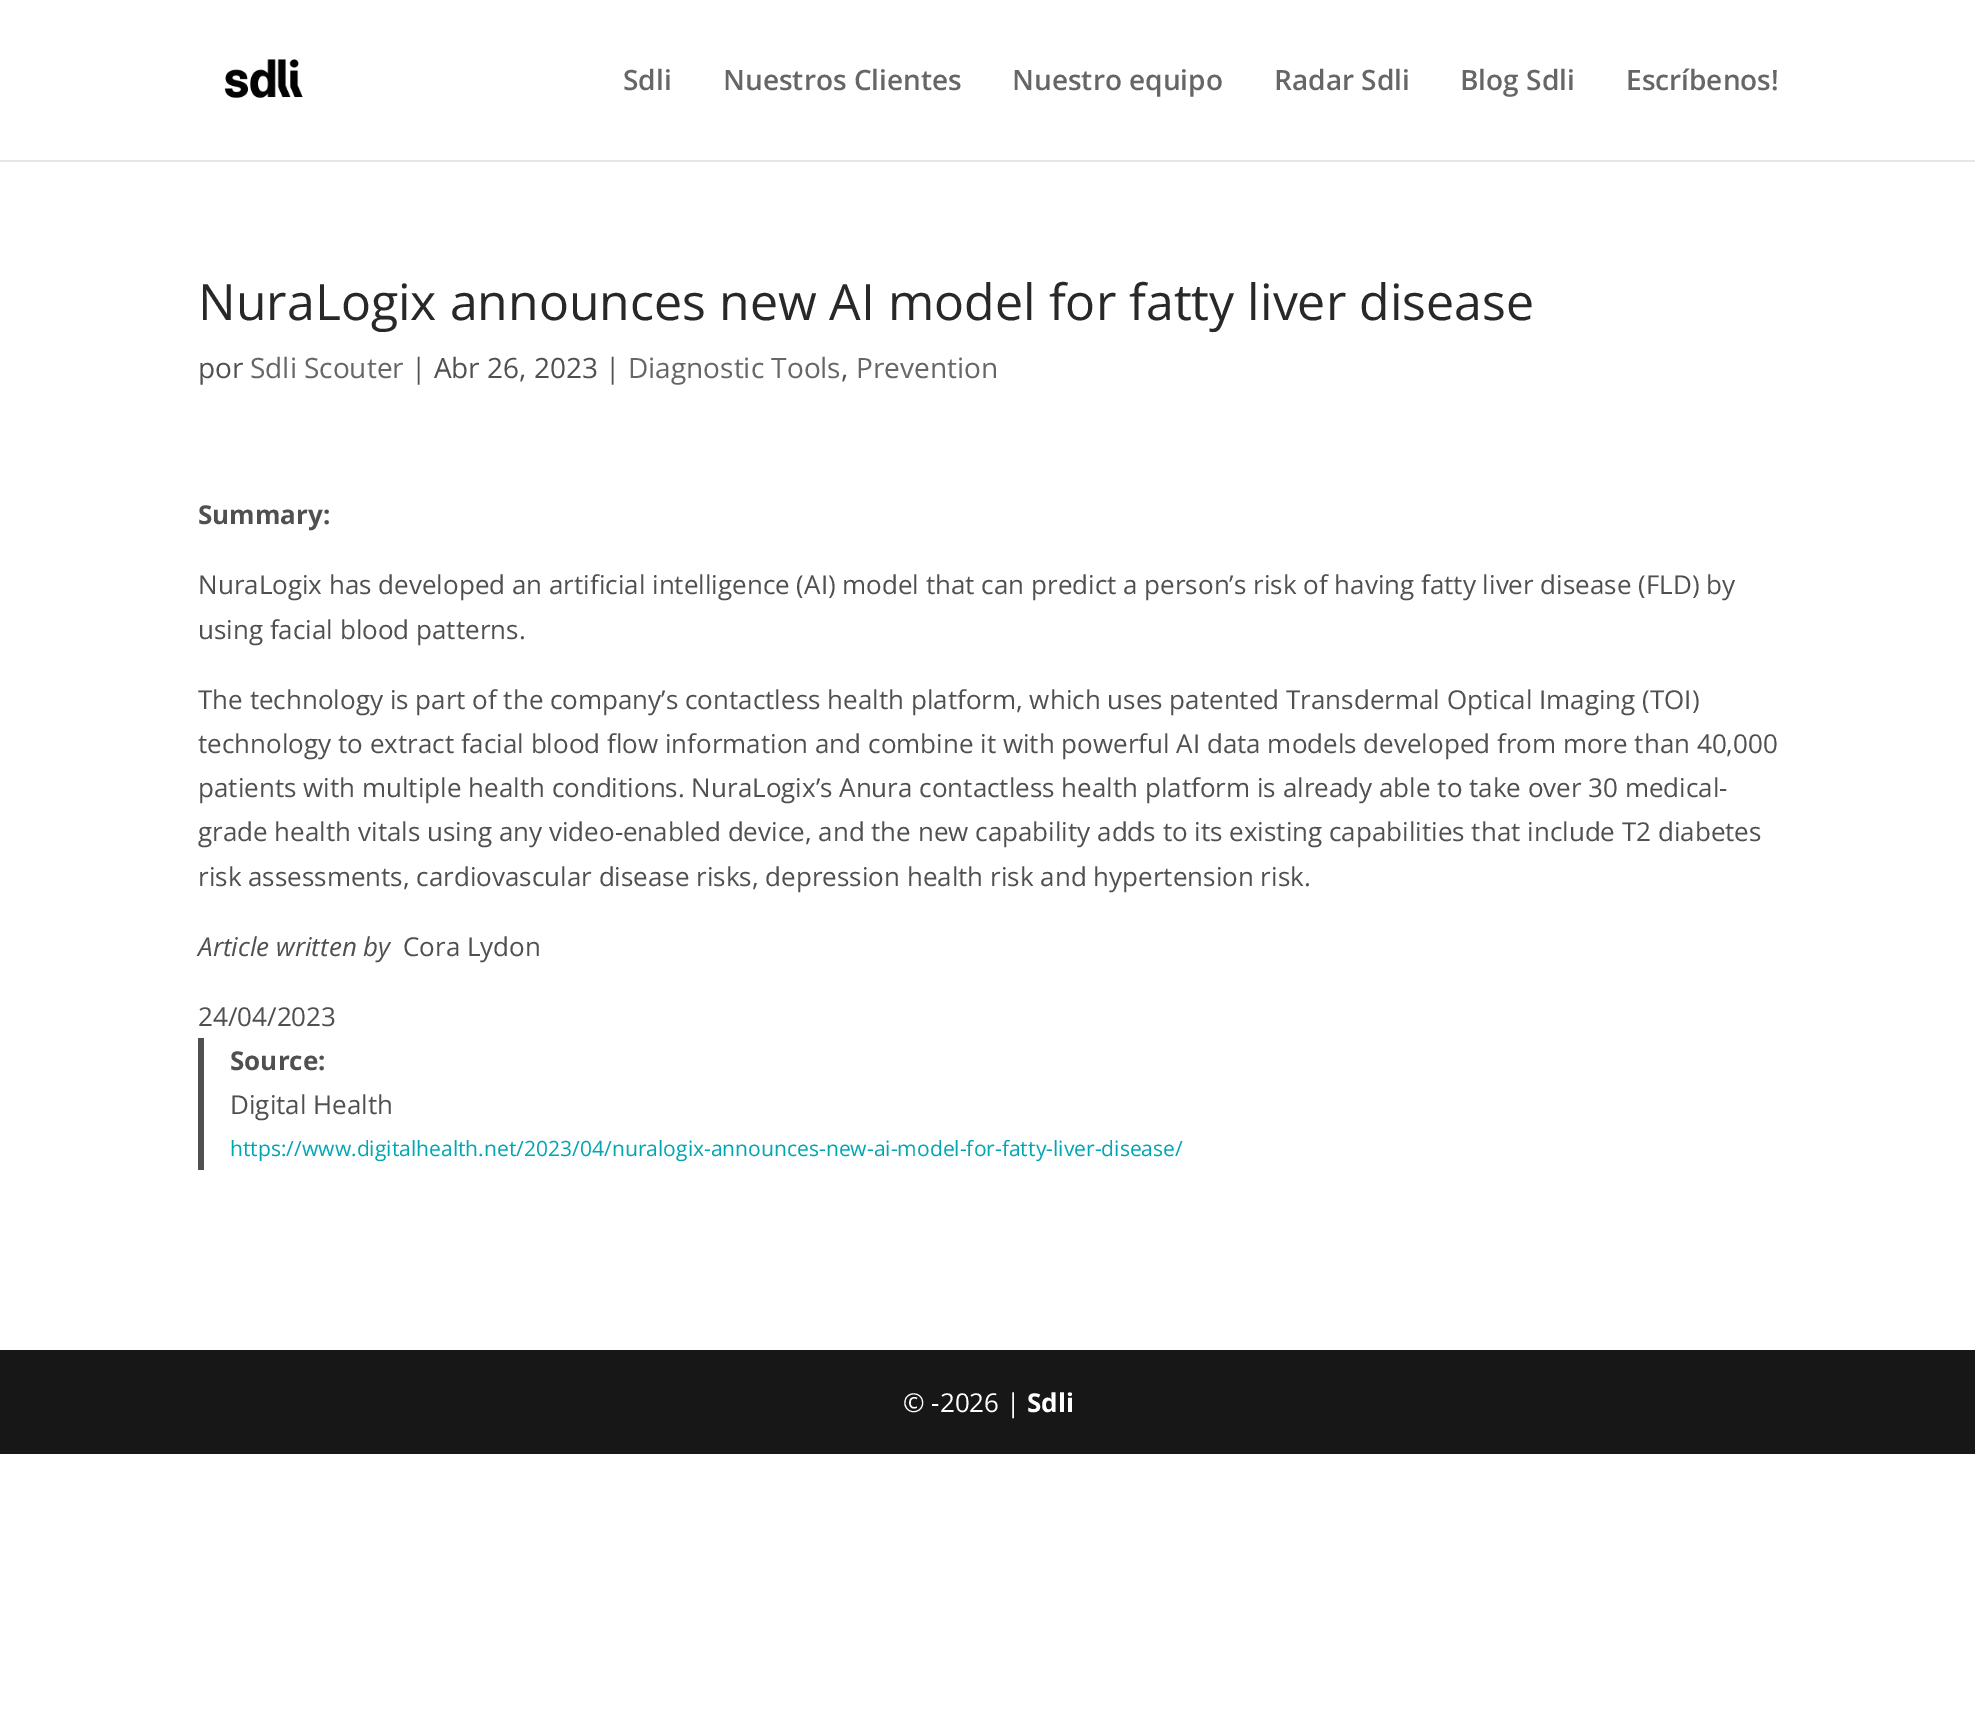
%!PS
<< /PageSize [1975 1722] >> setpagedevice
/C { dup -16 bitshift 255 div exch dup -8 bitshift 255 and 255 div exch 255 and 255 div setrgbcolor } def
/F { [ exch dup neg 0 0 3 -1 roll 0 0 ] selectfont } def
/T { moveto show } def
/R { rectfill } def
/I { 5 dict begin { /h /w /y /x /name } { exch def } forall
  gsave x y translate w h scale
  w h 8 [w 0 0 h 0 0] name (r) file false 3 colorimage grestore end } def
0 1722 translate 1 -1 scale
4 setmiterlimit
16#FFFFFF C
0 0 1975 1722 R
16#E6E6E6 C
0 160 1975 2 R
(1.rgb) 224 59 79 39 I
/OpenSans-SemiBold 28 F
16#666666 C
(Sdli) 623 90 T
(Nuestros Clientes) 723 90 T
(Nuestro equipo) 1012 90 T
(Radar Sdli) 1274 90 T
(Blog Sdli) 1460 90 T
(Escríbenos!) 1626 90 T
/OpenSans-Regular 50 F
16#282828 C
(NuraLogix announces new AI model for fatty liver disease) 198 320 T
/OpenSans-Regular 28 F
16#505050 C
(por) 198 378 T
16#666666 C
(Sdli Scouter) 250 378 T
16#505050 C
(| Abr 26, 2023 |) 411 378 T
16#666666 C
(Diagnostic Tools) 628 378 T
16#505050 C
(,) 841 378 T
16#666666 C
(Prevention) 856 378 T
/OpenSans-Bold 26 F
16#505050 C
(Summary:) 198 524 T
/OpenSans-Regular 26 F
(NuraLogix has developed an artificial intelligence \(AI\) model that can predict a person’s risk of having fatty liver disease \(FLD\) by) 198 594 T
(using facial blood patterns.) 198 639 T
(The technology is part of the company’s contactless health platform, which uses patented Transdermal Optical Imaging \(TOI\)) 198 709 T
(technology to extract facial blood flow information and combine it with powerful AI data models developed from more than 40,000) 198 753 T
(patients with multiple health conditions. NuraLogix’s Anura contactless health platform is already able to take over 30 medical-) 198 797 T
(grade health vitals using any video-enabled device, and the new capability adds to its existing capabilities that include T2 diabetes) 198 841 T
(risk assessments, cardiovascular disease risks, depression health risk and hypertension risk.) 198 886 T
/OpenSans-Italic 26 F
(Article written by) 198 956 T
/OpenSans-Regular 26 F
(Cora Lydon) 403 956 T
(24/04/2023) 198 1026 T
198 1038 6 132 R
/OpenSans-Bold 26 F
(Source:) 230 1070 T
/OpenSans-Regular 26 F
(Digital Health) 230 1114 T
/OpenSans-Regular 21.1 F
16#00A6B2 C
(https://www.digitalhealth.net/2023/04/nuralogix-announces-new-ai-model-for-fatty-liver-disease/) 230 1156 T
16#171717 C
0 1350 1975 104 R
/OpenSans-Regular 26 F
16#FFFFFF C
(© -2026 |) 903 1412 T
/OpenSans-Bold 26 F
(Sdli) 1027 1412 T
showpage
